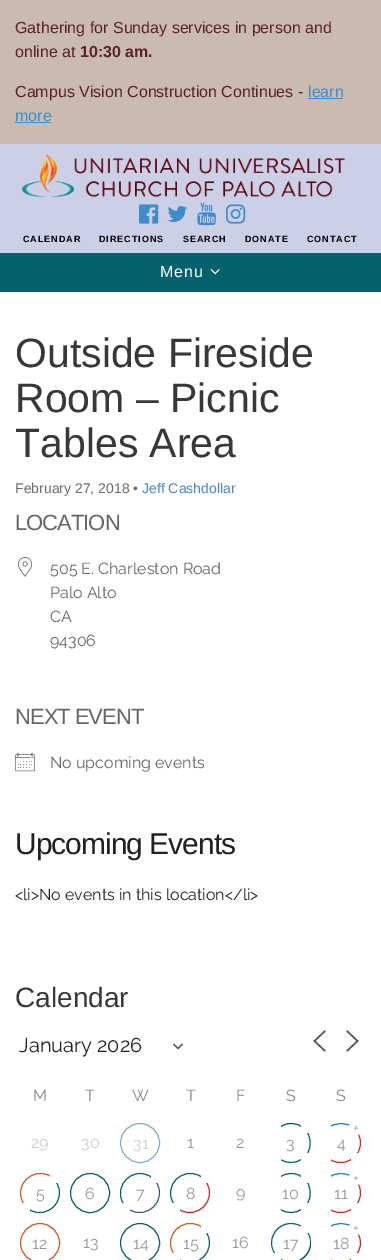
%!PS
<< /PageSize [381 1260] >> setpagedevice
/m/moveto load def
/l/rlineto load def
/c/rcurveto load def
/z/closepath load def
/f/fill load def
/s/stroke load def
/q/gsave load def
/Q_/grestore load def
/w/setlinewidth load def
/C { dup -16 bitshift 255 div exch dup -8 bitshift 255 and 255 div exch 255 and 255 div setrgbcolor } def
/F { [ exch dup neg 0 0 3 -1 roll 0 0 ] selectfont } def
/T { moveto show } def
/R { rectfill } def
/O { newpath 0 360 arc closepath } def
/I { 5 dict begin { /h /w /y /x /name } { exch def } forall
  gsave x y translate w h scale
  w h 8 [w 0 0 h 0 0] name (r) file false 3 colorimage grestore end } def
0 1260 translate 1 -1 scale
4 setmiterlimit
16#C9BCAF C
0 0 381 1260 R
/LiberationSans-Regular 16 F
16#5D2222 C
(Gathering for Sunday services in person and) 15 33 T
(online at) 15 57 T
/LiberationSans-Bold 16 F
(10:30 am.) 80 57 T
/LiberationSans-Regular 16 F
(Campus Vision Construction Continues -) 15 97 T
16#428BCA C
(learn) 308 97 T
308 98 35 1 R
(more) 15 121 T
15 122 36 1 R
16#CBD0E7 C
0 144 381 109 R
(1.rgb) 21 154 324 44 I
(2.rgb) 139 204 20 20 I
(3.rgb) 167 206 20 16 I
(4.rgb) 197 202 19 24 I
(5.rgb) 226 204 20 20 I
/LiberationSans-Bold 9 F
16#000000 C
23 242 m 1 0 (CALENDAR) ashow
99 242 m 1 0 (DIRECTIONS) ashow
183 242 m 1 0 (SEARCH) ashow
245 242 m 1 0 (DONATE) ashow
307 242 m 1 0 (CONTACT) ashow
16#07616C C
0 253 381 39 R
/LiberationSans-Regular 16 F
16#FFFFFF C
160 277 m 1 0 (Menu) ashow
(6.rgb) 210 269 10 6 I
0 292 381 968 R
/LiberationSans-Regular 41 F
16#373839 C
(Outside Fireside) 15 367 T
(Room – Picnic) 15 412 T
(Tables Area) 15 457 T
/LiberationSans-Regular 14 F
16#6C6D6F C
(February 27, 2018 •) 15 493 T
16#428BCA C
(Jeff Cashdollar) 142 493 T
/LiberationSans-Regular 22 F
16#666666 C
15 530 m -1 0 (LOCATION) ashow
(7.rgb) 18 557 14 20 I
/Raleway-Regular 16 F
(505 E. Charleston Road) 50 574 T
(Palo Alto) 50 598 T
(CA) 50 622 T
(94306) 50 646 T
/LiberationSans-Regular 22 F
15 724 m -1 0 (NEXT EVENT) ashow
(8.rgb) 15 752 20 20 I
/Raleway-Regular 16 F
(No upcoming events) 50 768 T
/LiberationSans-Regular 30 F
16#212121 C
15 854 m -1 0 (Upcoming Events) ashow
/Raleway-Regular 16 F
(<li>No events in this location</li>) 15 900 T
/LiberationSans-Regular 28 F
16#373839 C
(Calendar) 15 1007 T
16#555555 C
1.3 w
2 setlinecap
174 1044.5 m 4 4 l 4 -4 l s
/Raleway-Regular 20 F
16#212121 C
(January 2026) 19 1052 T
16#555555 C
1.5 w
324.5 1050.5 m -10 -9.5 l 10 -9.5 l 347.5 1050.5 m 10 -9.5 l -10 -9.5 l s
/Raleway-Regular 16 F
16#888888 C
(M) 33 1101 T
(T) 85 1101 T
(W) 132 1101 T
(T) 186 1101 T
(F) 236 1101 T
(S) 286 1101 T
(S) 336 1101 T
16#CCCCCC C
(29) 31 1148 T
(30) 81 1148 T
16#83B0B6 C
1 w
0 setlinecap
140 1143 19.5 O s
16#CCCCCC C
(31) 133 1149 T
16#999999 C
(1) 187 1148 T
(2) 236 1148 T
q
271 1133 m 10 0 l 0 -10 l 20 0 l 0 10 l 10 0 l 0 20 l -10 0 l 0 10 l -20 0 l 0 -10 l -10 0 l z clip newpath
16#07616C C
277 1129 m 4 -3.5 9 -5.5 14 -5.5 c 23.5 0 26.5 34 4 38.5 c -6.5 1.5 -13 -.5 -18 -5 c s
Q_
(3) 286 1149 T
q
321 1133 m 10 0 l 0 -10 l 20 0 l 0 10 l 10 0 l 0 20 l -10 0 l 0 10 l -20 0 l 0 -10 l -10 0 l z clip newpath
16#1482B5 C
327 1129 m 7.5 -7.5 20.5 -7.5 28 0 c s
16#CD2A30 C
355 1129 m 2.5 3 4.5 6.5 5 10 c 4 19 -19.5 31.5 -33 18 c s
Q_
16#FFFFFF C
356 1128 7 O f
/Raleway-Regular 14 F
16#999999 C
(+) 353 1133 T
/Raleway-Regular 16 F
(4) 337 1149 T
q
20 1173 m 30 0 l 0 10 l 10 0 l 0 30 l -30 0 l 0 -10 l -10 0 l z clip newpath
16#07616C C
54 1179 m 2.5 3 4.5 6.5 5 10 c 4 19 -19.5 31.5 -33 18 c s
16#CD5A2B C
26 1207 m -2.5 -3 -4.5 -6.5 -5 -10 c -4 -19 19.5 -31.5 33 -18 c s
Q_
(5) 36 1199 T
16#07616C C
90 1193 19.5 O s
16#999999 C
(6) 85 1199 T
q
120.5 1173 m 30 0 l 0 10 l 10 0 l 0 30 l -30 0 l 0 -10 l -10 0 l z clip newpath
16#45587F C
154 1179 m 2.5 3 4.5 6.5 5 10 c 4 19 -19.5 31.5 -33 18 c s
16#07616C C
126 1207 m -13.5 -13.5 -1 -37 18 -33 c 3.5 .5 7 2.5 10 5 c s
Q_
(7) 136 1199 T
q
170.5 1173 m 30 0 l 0 10 l 10 0 l 0 30 l -30 0 l 0 -10 l -10 0 l z clip newpath
16#CD2A30 C
204 1179 m 2.5 3 4.5 6.5 5 10 c 4 19 -19.5 31.5 -33 18 c s
16#07616C C
176 1207 m -2.5 -3 -4.5 -6.5 -5 -10 c -4 -19 19.5 -31.5 33 -18 c s
Q_
(8) 186 1199 T
(9) 236 1198 T
q
271 1183 m 10 0 l 0 -10 l 20 0 l 0 10 l 10 0 l 0 20 l -10 0 l 0 10 l -20 0 l 0 -10 l -10 0 l z clip newpath
16#07616C C
277 1179 m 4 -3.5 9 -5.5 14 -5.5 c 23.5 0 26.5 34 4 38.5 c -6.5 1.5 -13 -.5 -18 -5 c s
Q_
(10) 282 1199 T
q
321 1183 m 10 0 l 0 -10 l 20 0 l 0 10 l 10 0 l 0 20 l -10 0 l 0 10 l -20 0 l 0 -10 l -10 0 l z clip newpath
16#1482B5 C
327 1179 m 7.5 -7.5 20.5 -7.5 28 0 c s
16#CD2A30 C
355 1179 m 2.5 3 4.5 6.5 5 10 c 4 19 -19.5 31.5 -33 18 c s
Q_
16#FFFFFF C
356 1178 7 O f
/Raleway-Regular 14 F
16#999999 C
(+) 353 1183 T
/Raleway-Regular 16 F
(11) 334 1199 T
16#CD5A2B C
40 1243 19.5 O s
16#999999 C
(12) 32 1249 T
(13) 83 1248 T
16#07616C C
140 1243 19.5 O s
16#999999 C
(14) 133 1249 T
q
170.5 1223 m 30 0 l 0 10 l 10 0 l 0 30 l -30 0 l 0 -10 l -10 0 l z clip newpath
16#07616C C
204 1229 m 2.5 3 4.5 6.5 5 10 c 4 19 -19.5 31.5 -33 18 c s
16#CD5A2B C
176 1257 m -2.5 -3 -4.5 -6.5 -5 -10 c -4 -19 19.5 -31.5 33 -18 c s
Q_
(15) 183 1249 T
(16) 232 1248 T
16#07616C C
291 1224 m -15 0 -24 17 -16 29 c -1 0 l -8 -13 1.5 -30 17 -30 c 3.5 0 6.5 1 10 2.5 c 0 1 l -3 -1.5 -6.5 -2.5 -10 -2.5 c z 311 1246 m -2.5 14 -18.5 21.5 -30 14 c 0 -1 l 16.5 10.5 36.5 -9 26.5 -26 c 1 0 l 2.5 4.5 2.5 8 2.5 13 c z eofill
16#999999 C
(17) 283 1249 T
q
321 1233 m 10 0 l 0 -10 l 20 0 l 0 10 l 10 0 l 0 20 l -10 0 l 0 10 l -20 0 l 0 -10 l -10 0 l z clip newpath
16#1482B5 C
327 1229 m 7.5 -7.5 20.5 -7.5 28 0 c s
16#CD2A30 C
355 1229 m 2.5 3 4.5 6.5 5 10 c 4 19 -19.5 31.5 -33 18 c s
Q_
16#FFFFFF C
356 1228 7 O f
/Raleway-Regular 14 F
16#999999 C
(+) 353 1233 T
/Raleway-Regular 16 F
(18) 333 1249 T
showpage
